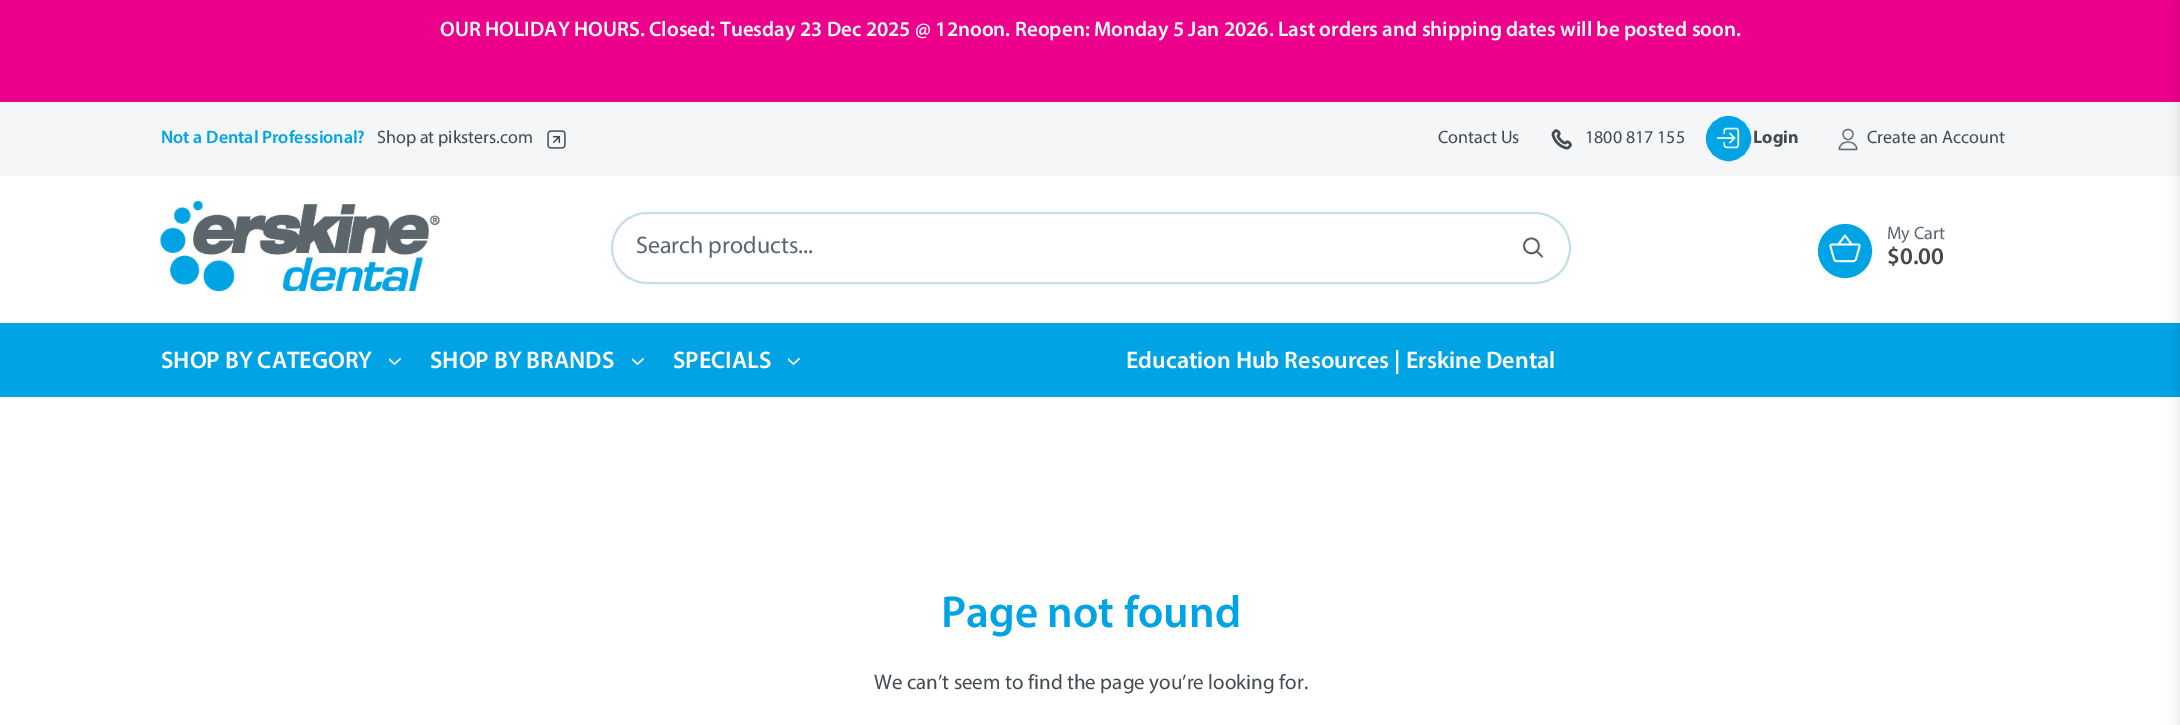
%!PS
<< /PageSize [2180 725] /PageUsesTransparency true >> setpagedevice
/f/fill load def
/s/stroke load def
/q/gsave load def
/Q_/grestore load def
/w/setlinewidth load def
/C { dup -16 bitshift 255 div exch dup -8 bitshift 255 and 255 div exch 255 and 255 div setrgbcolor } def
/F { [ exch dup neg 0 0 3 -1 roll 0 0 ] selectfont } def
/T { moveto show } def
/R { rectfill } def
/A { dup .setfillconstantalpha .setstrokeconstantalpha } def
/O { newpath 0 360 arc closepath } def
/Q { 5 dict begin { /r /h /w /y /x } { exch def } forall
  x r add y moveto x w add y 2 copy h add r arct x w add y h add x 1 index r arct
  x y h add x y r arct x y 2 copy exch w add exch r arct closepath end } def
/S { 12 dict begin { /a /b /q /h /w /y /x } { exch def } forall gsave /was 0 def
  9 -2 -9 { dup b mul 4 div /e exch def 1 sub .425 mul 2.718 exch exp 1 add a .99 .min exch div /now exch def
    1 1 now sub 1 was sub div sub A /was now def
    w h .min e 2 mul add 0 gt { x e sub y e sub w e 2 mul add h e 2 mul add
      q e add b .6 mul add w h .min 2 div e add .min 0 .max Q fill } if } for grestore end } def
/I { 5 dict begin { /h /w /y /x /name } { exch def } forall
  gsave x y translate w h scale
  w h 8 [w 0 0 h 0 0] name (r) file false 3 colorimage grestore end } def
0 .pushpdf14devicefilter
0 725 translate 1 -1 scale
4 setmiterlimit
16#FFFFFF C
0 0 2180 725 R
16#EC008C C
0 0 2180 102 R
/Myriad-SemiBold 21 F
16#FFFFFF C
(OUR HOLIDAY HOURS. Closed: Tuesday 23 Dec 2025 @ 12noon. Reopen: Monday 5 Jan 2026. Last orders and shipping dates will be posted soon.) 440 36 T
16#F4F6F8 C
0 102 2180 74 R
16#00A4E4 C
0 323 2180 74 R
16#000000 C
2178 0 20 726 0 6 .1 S
/Myriad-SemiBold 18 F
16#00A4E4 C
(Not a Dental Professional?) 161 143 T
/Myriad-Regular 18 F
16#434B50 C
(Shop at piksters.com) 377 143 T
(1.rgb) 547 130 19 19 I
(Contact Us) 1438 143 T
(2.rgb) 1551 129 21 21 I
(1800 817 155) 1585 143 T
16#00A4E4 C
1728.5 138.5 21.5 O q f Q_
2 w
s
(3.rgb) 1716 127 24 22 I
/Myriad-Bold 18 F
16#434B50 C
(Login) 1753 143 T
(4.rgb) 1838 128 20 23 I
/Myriad-Regular 18 F
(Create an Account) 1867 143 T
(5.rgb) 160 201 280 90 I
16#C6DEE8 C
612 213 958 70 35 Q s
/Myriad-Regular 24 F
16#5B656B C
(Search products...) 636 253 T
(6.rgb) 1522 237 22 21 I
16#00A4E4 C
1845 251 26 O q f Q_
s
(7.rgb) 1829 234 32 29 I
/Myriad-Regular 18 F
16#5B656B C
(My Cart) 1887 239 T
/Myriad-SemiBold 24 F
16#434B50 C
($0.00) 1887 264 T
16#FFFFFF C
(SHOP BY CATEGORY) 161 368 T
(8.rgb) 389 357 12 9 I
(SHOP BY BRANDS) 430 368 T
(8.rgb) 632 357 12 9 I
(SPECIALS) 673 368 T
(8.rgb) 788 357 12 9 I
(Education Hub Resources | Erskine Dental) 1126 368 T
/Myriad-SemiBold 45 F
16#00A4E4 C
(Page not found) 941 627 T
/Myriad-Regular 21 F
16#434B50 C
(We can’t seem to find the page you’re looking for.) 874 689 T
.poppdf14devicefilter showpage
